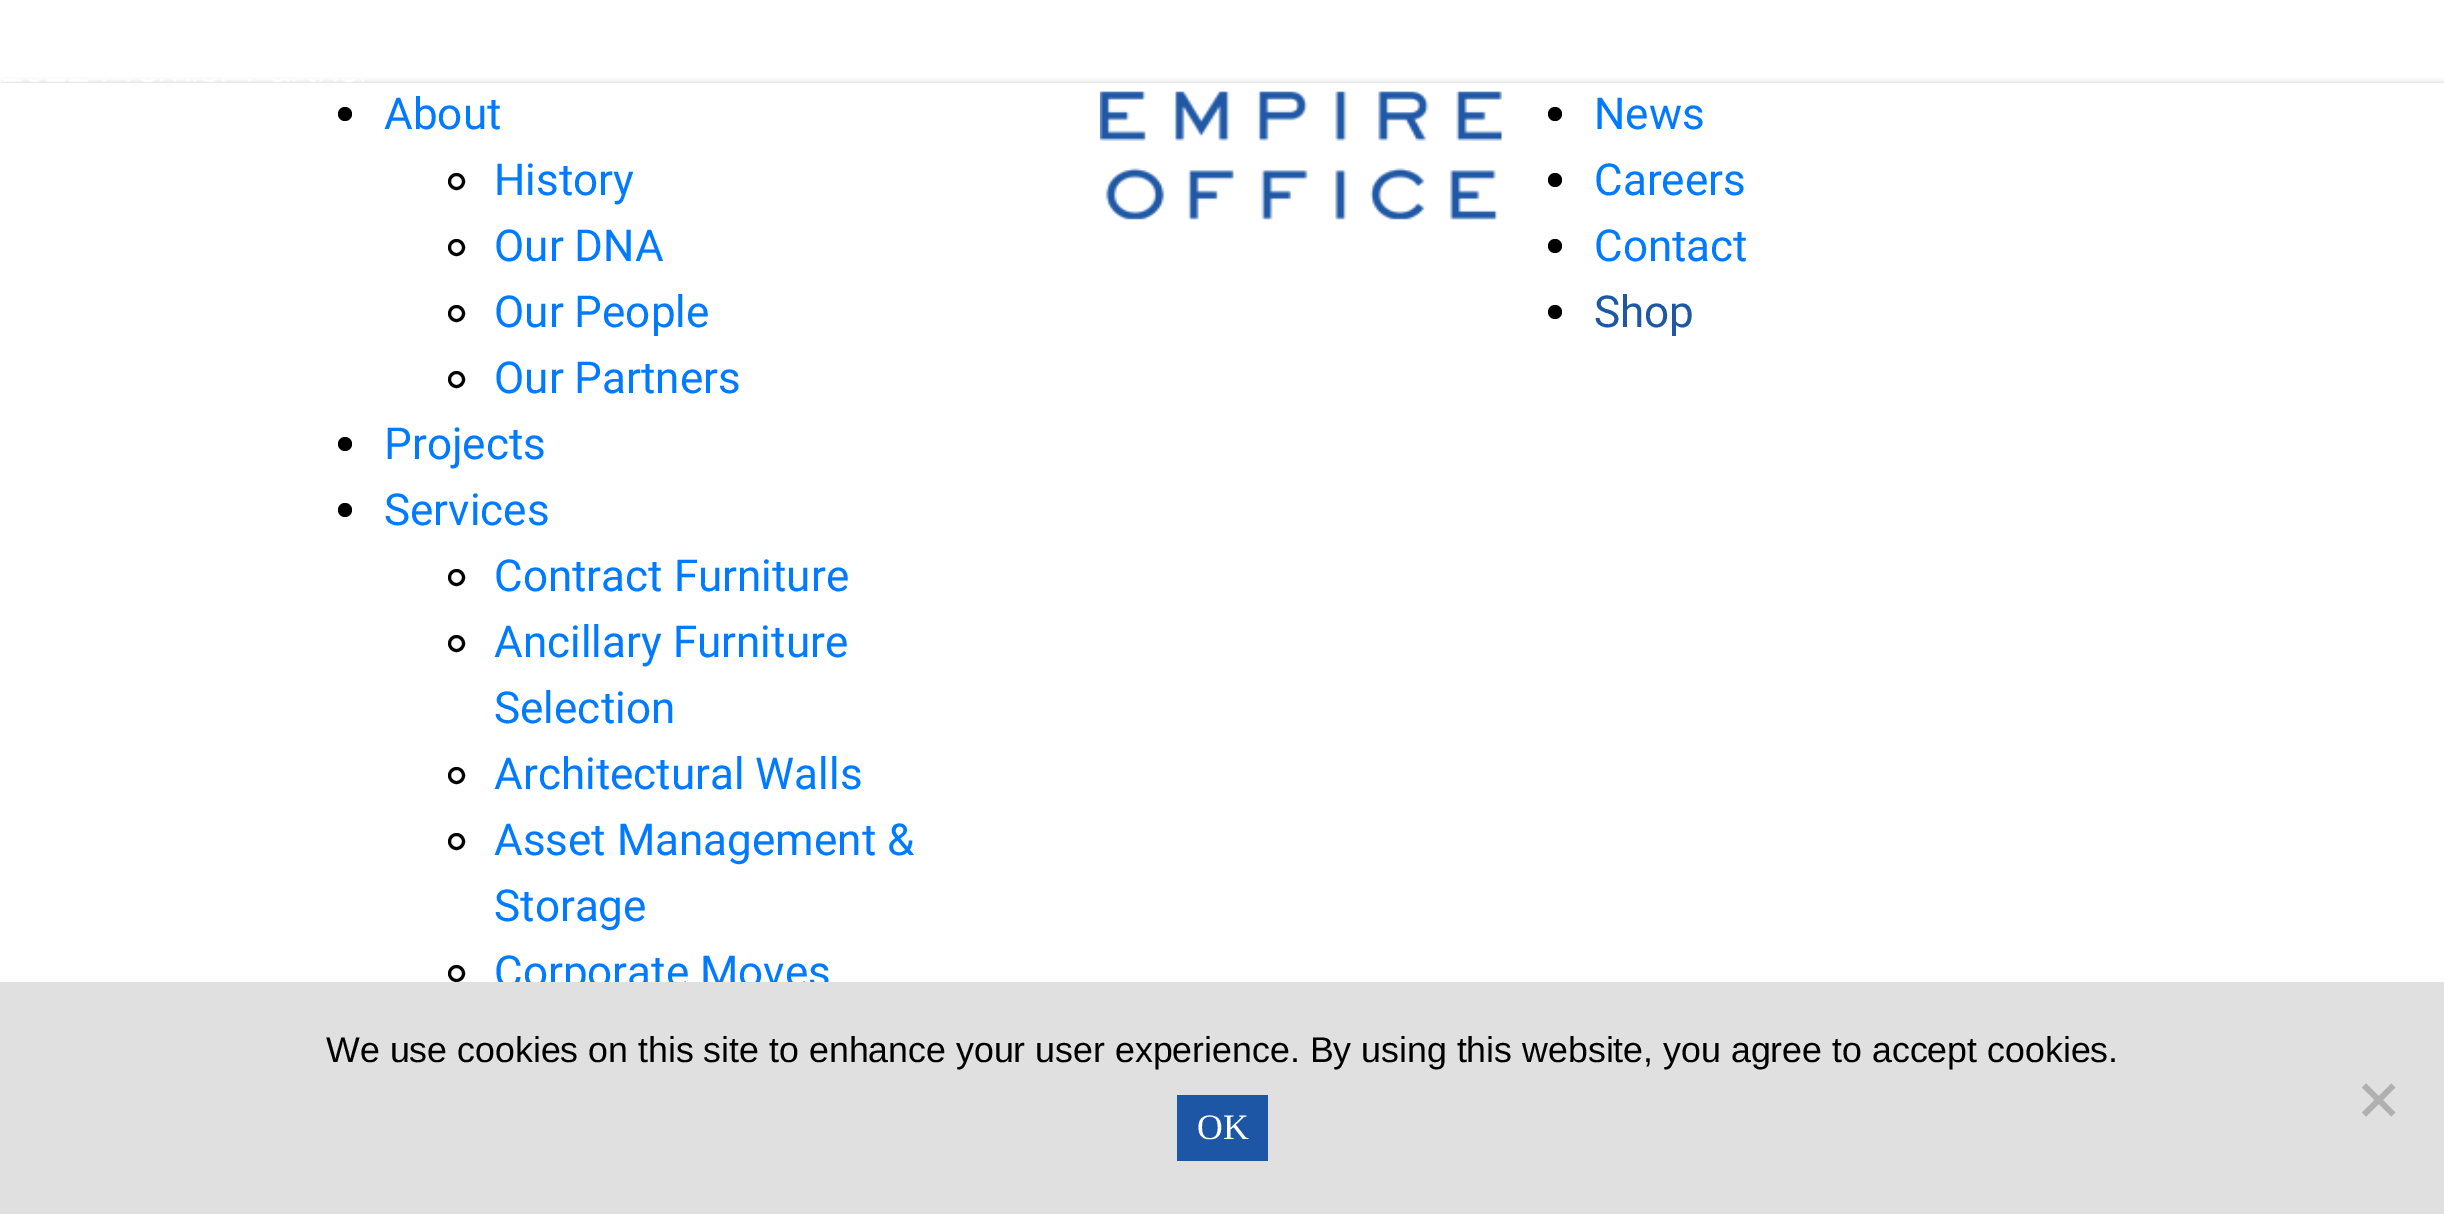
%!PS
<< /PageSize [2444 1214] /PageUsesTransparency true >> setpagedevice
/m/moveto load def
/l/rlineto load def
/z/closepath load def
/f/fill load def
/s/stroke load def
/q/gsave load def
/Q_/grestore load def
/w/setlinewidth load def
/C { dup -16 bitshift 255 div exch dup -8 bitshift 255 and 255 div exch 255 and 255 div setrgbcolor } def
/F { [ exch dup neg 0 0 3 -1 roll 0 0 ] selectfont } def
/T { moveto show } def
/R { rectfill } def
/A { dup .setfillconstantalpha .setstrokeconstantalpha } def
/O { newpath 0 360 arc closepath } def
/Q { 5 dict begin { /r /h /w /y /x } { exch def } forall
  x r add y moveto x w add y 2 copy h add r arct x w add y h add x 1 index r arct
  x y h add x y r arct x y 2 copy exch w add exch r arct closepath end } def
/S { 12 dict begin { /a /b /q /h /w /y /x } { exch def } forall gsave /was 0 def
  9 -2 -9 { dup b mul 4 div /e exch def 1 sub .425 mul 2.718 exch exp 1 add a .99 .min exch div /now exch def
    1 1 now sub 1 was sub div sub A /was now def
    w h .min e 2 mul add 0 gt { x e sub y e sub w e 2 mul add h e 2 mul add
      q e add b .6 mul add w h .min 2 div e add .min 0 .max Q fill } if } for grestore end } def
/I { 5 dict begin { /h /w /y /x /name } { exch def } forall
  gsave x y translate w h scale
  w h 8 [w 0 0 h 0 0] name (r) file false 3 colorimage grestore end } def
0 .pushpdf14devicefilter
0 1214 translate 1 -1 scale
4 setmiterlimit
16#FFFFFF C
0 0 2444 1214 R
q
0 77 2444 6 rectclip
16#CCCCCC C
3 83 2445 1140 0 3 1 S
Q_
(1.rgb) 3 79 361 3 I
16#000000 C
345 114 7 O f
/Roboto-Regular 44 F
16#007BFF C
(About) 384 129 T
16#000000 C
3 w
456.5 181.5 7 O s
16#007BFF C
(History) 494 195 T
16#000000 C
456.5 247.5 7 O s
16#007BFF C
(Our DNA) 494 261 T
16#000000 C
456.5 313.5 7 O s
16#007BFF C
(Our People) 494 327 T
16#000000 C
456.5 379.5 7 O s
16#007BFF C
(Our Partners) 494 393 T
16#000000 C
345 444 7 O f
16#007BFF C
(Projects) 384 459 T
16#000000 C
345 510 7 O f
16#007BFF C
(Services) 384 525 T
16#000000 C
456.5 577.5 7 O s
16#007BFF C
(Contract Furniture) 494 591 T
16#000000 C
456.5 643.5 7 O s
16#007BFF C
(Ancillary Furniture) 494 657 T
(Selection) 494 723 T
16#000000 C
456.5 775.5 7 O s
16#007BFF C
(Architectural Walls) 494 789 T
16#000000 C
456.5 841.5 7 O s
16#007BFF C
(Asset Management &) 494 855 T
(Storage) 494 921 T
16#000000 C
456.5 973.5 7 O s
16#007BFF C
(Corporate Moves) 494 987 T
(2.rgb) 1100 91 402 129 I
16#000000 C
1555 114 7 O f
16#007BFF C
(News) 1594 129 T
16#000000 C
1555 180 7 O f
16#007BFF C
(Careers) 1594 195 T
16#000000 C
1555 246 7 O f
16#007BFF C
(Contact) 1594 261 T
16#000000 C
1555 312 7 O f
16#1D58A4 C
(Shop) 1594 327 T
16#E0E0E0 C
0 982 2444 232 R
/LiberationSans-Regular 35.75 F
16#000000 C
(We use cookies on this site to enhance your user experience. By using this website, you agree to accept cookies.) 326 1062 T
16#B0B0B0 C
2391.5 1083.5 m 4 4 l -29.5 29 l -4 -4 l z f
2362 1087.5 m 4 -4 l 29.5 29 l -4 4 l z f
16#1D56A4 C
1177 1095 91 66 R
/LiberationSerif-Regular 35.75 F
16#FFFFFF C
(OK) 1197 1139 T
.poppdf14devicefilter showpage
